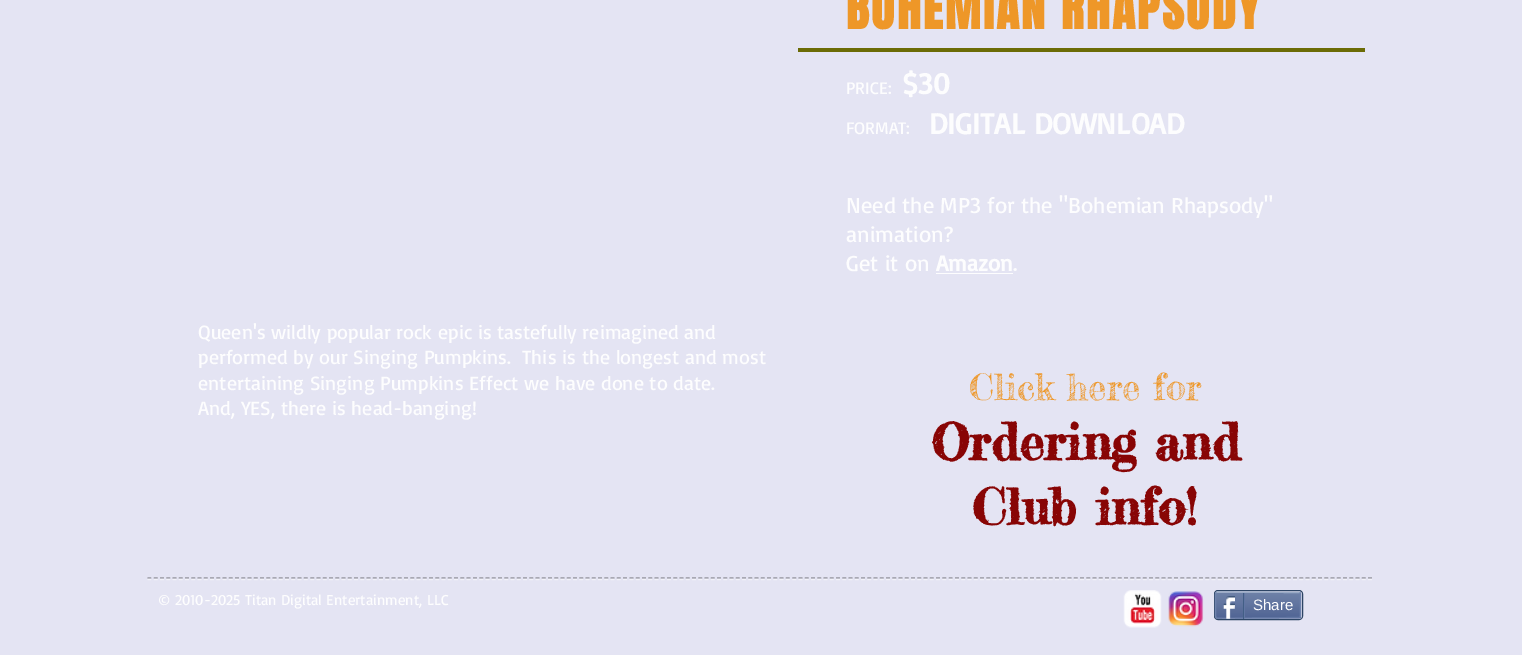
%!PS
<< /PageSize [1522 655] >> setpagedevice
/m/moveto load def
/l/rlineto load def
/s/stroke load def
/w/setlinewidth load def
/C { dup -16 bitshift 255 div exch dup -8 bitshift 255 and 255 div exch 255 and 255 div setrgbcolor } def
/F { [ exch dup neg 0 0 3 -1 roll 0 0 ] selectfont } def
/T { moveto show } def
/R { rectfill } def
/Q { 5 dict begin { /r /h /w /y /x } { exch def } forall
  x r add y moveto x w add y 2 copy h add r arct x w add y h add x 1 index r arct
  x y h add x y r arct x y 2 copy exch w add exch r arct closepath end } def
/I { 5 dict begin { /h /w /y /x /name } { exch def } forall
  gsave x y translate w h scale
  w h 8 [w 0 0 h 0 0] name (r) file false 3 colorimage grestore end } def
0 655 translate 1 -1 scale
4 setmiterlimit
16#E4E4F3 C
0 0 1522 655 R
/Anton-Bold 47.5 F
16#EE9728 C
846 29 m 2.4 0 (BOHEMIAN RHAPSODY) ashow
16#6B6B05 C
798 48 567 4 R
/Basic-Regular 17.5 F
16#FDFDFE C
(PRICE:) 846 94 T
/Basic-Bold 30 F
($30) 902 94 T
/Basic-Regular 17.5 F
(FORMAT:) 846 134 T
/Basic-Bold 30 F
(DIGITAL DOWNLOAD) 929 134 T
/Basic-Regular 22.5 F
(Need the MP3 for the "Bohemian Rhapsody") 846 213 T
(animation?) 846 242 T
(Get it on) 846 271 T
/Basic-Bold 22.5 F
(Amazon) 936 271 T
/Basic-Regular 22.5 F
(.) 1013 271 T
936 273 77 1 R
/Basic-Regular 20 F
(Queen's wildly popular rock epic is tastefully reimagined and) 198 339 T
(performed by our Singing Pumpkins.  This is the longest and most) 198 364 T
(entertaining Singing Pumpkins Effect we have done to date.) 198 390 T
(And, YES, there is head-banging!) 198 415 T
/FrederickatheGreat-Regular 36.25 F
16#EE9728 C
(Click here for) 969 400 T
/FrederickatheGreat-Bold 50 F
16#880505 C
(Ordering and) 931 460 T
(Club info!) 972 525 T
16#94949E C
1.2 w
[3.75 2.51] 0 setdash
147.5 578 m 1225 0 l s
16#F2F2F9 C
147.5 579.5 m 1225 0 l s
/Basic-Regular 15 F
16#FDFDFE C
(© 2010-2025 Titan Digital Entertainment, LLC) 158 605 T
(1.rgb) 1123 590 39 38 I
(2.rgb) 1168 591 36 36 I
16#2D4565 C
1 w
[] 0 setdash
1214.5 590.5 88 29 3.5 Q s
(3.rgb) 1215 592 87 27 I
16#9AABC6 C
1.2 w
1216 592.5 m 1.5 -.5 l 82.5 .5 l s
16#6F83AD C
1300 592.5 m .5 1.5 l 0 22 l -.5 1.5 l s
16#6176A3 C
1300 617.5 m -69 .5 l -13.5 0 l -1.5 -.5 l s
16#6F83AD C
1216 617.5 m -.5 -1.5 l 0 -22 l .5 -1.5 l s
(4.rgb) 1222 596 13 23 I
16#425E85 C
1243 593 1 26 R
/LiberationSans-Regular 15 F
16#FDFDFE C
(Share) 1253 610 T
16#6176A3 C
1244 593 1 25 R
showpage
